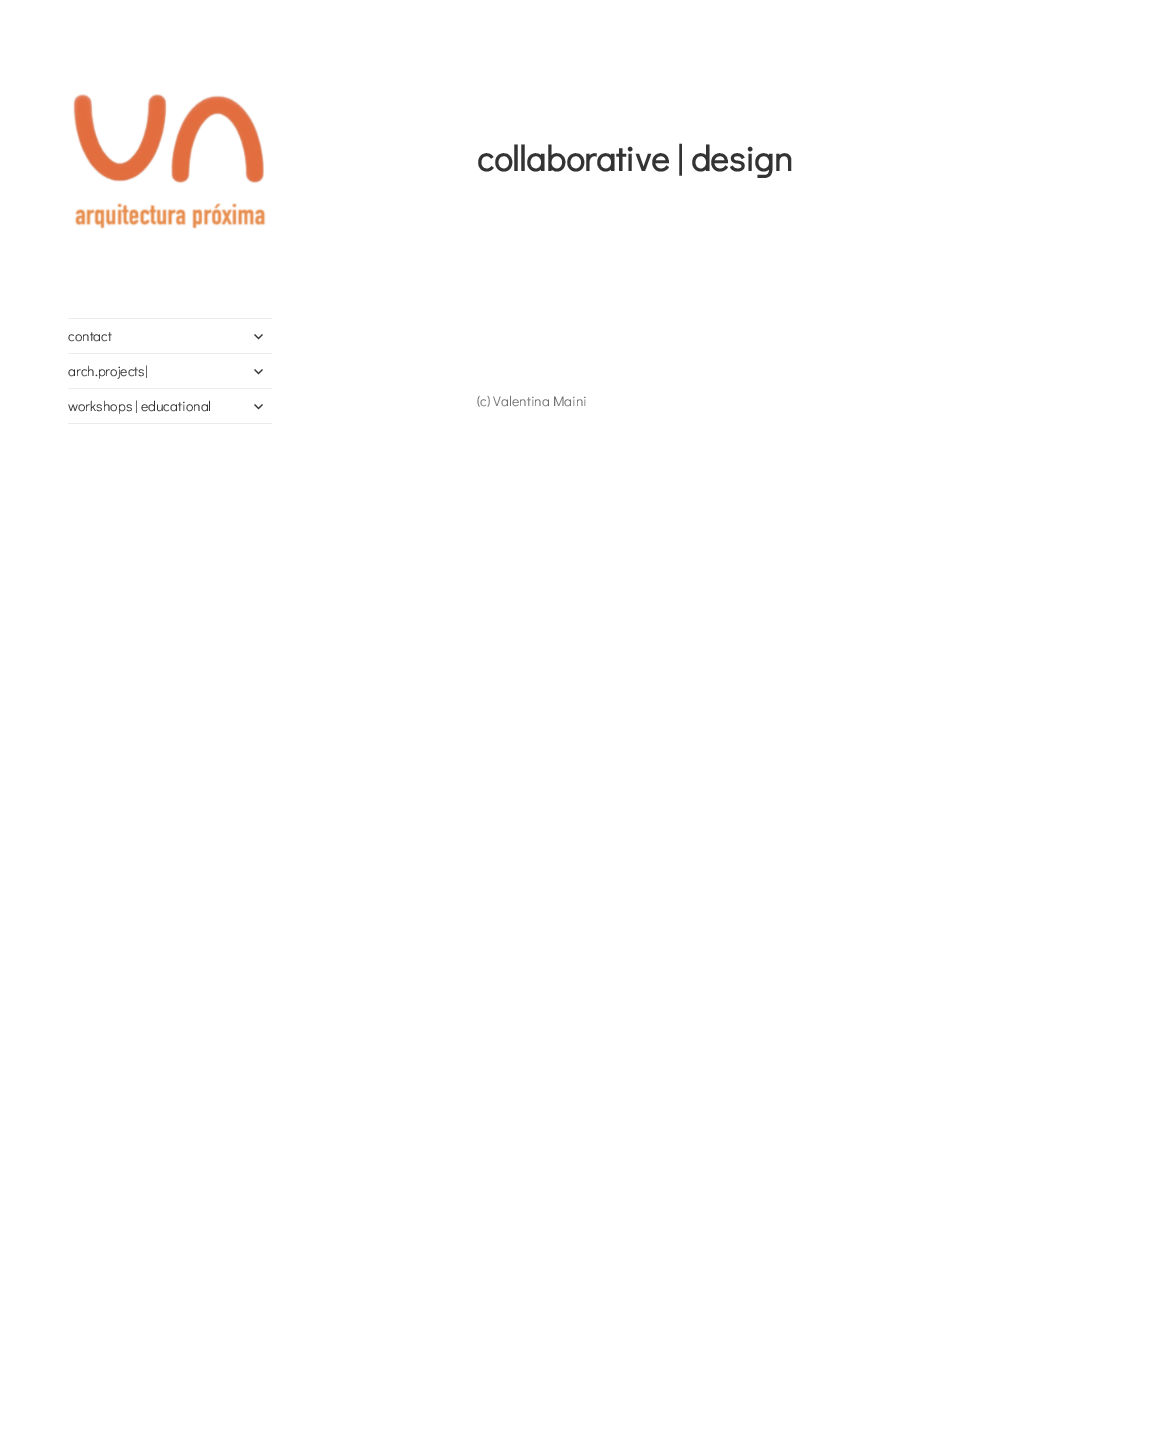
%!PS
<< /PageSize [1158 1434] >> setpagedevice
/C { dup -16 bitshift 255 div exch dup -8 bitshift 255 and 255 div exch 255 and 255 div setrgbcolor } def
/F { [ exch dup neg 0 0 3 -1 roll 0 0 ] selectfont } def
/T { moveto show } def
/R { rectfill } def
/I { 5 dict begin { /h /w /y /x /name } { exch def } forall
  gsave x y translate w h scale
  w h 8 [w 0 0 h 0 0] name (r) file false 3 colorimage grestore end } def
0 1434 translate 1 -1 scale
4 setmiterlimit
16#FFFFFF C
0 0 1158 1434 R
/DidactGothic-Bold 35 F
16#333333 C
(collaborative | design) 477 171 T
(1.rgb) 73 94 193 135 I
16#EBEBEB C
68 318 204 1 R
68 423 204 1 R
/DidactGothic-Regular 14 F
16#333333 C
(contact) 68 341 T
(2.rgb) 254 334 9 6 I
16#EBEBEB C
68 353 204 1 R
16#333333 C
(arch.projects|) 68 376 T
(2.rgb) 254 369 9 6 I
16#EBEBEB C
68 388 204 1 R
16#333333 C
(workshops | educational) 68 411 T
(2.rgb) 254 404 9 6 I
16#707070 C
(\(c\) Valentina Maini) 477 406 T
showpage
